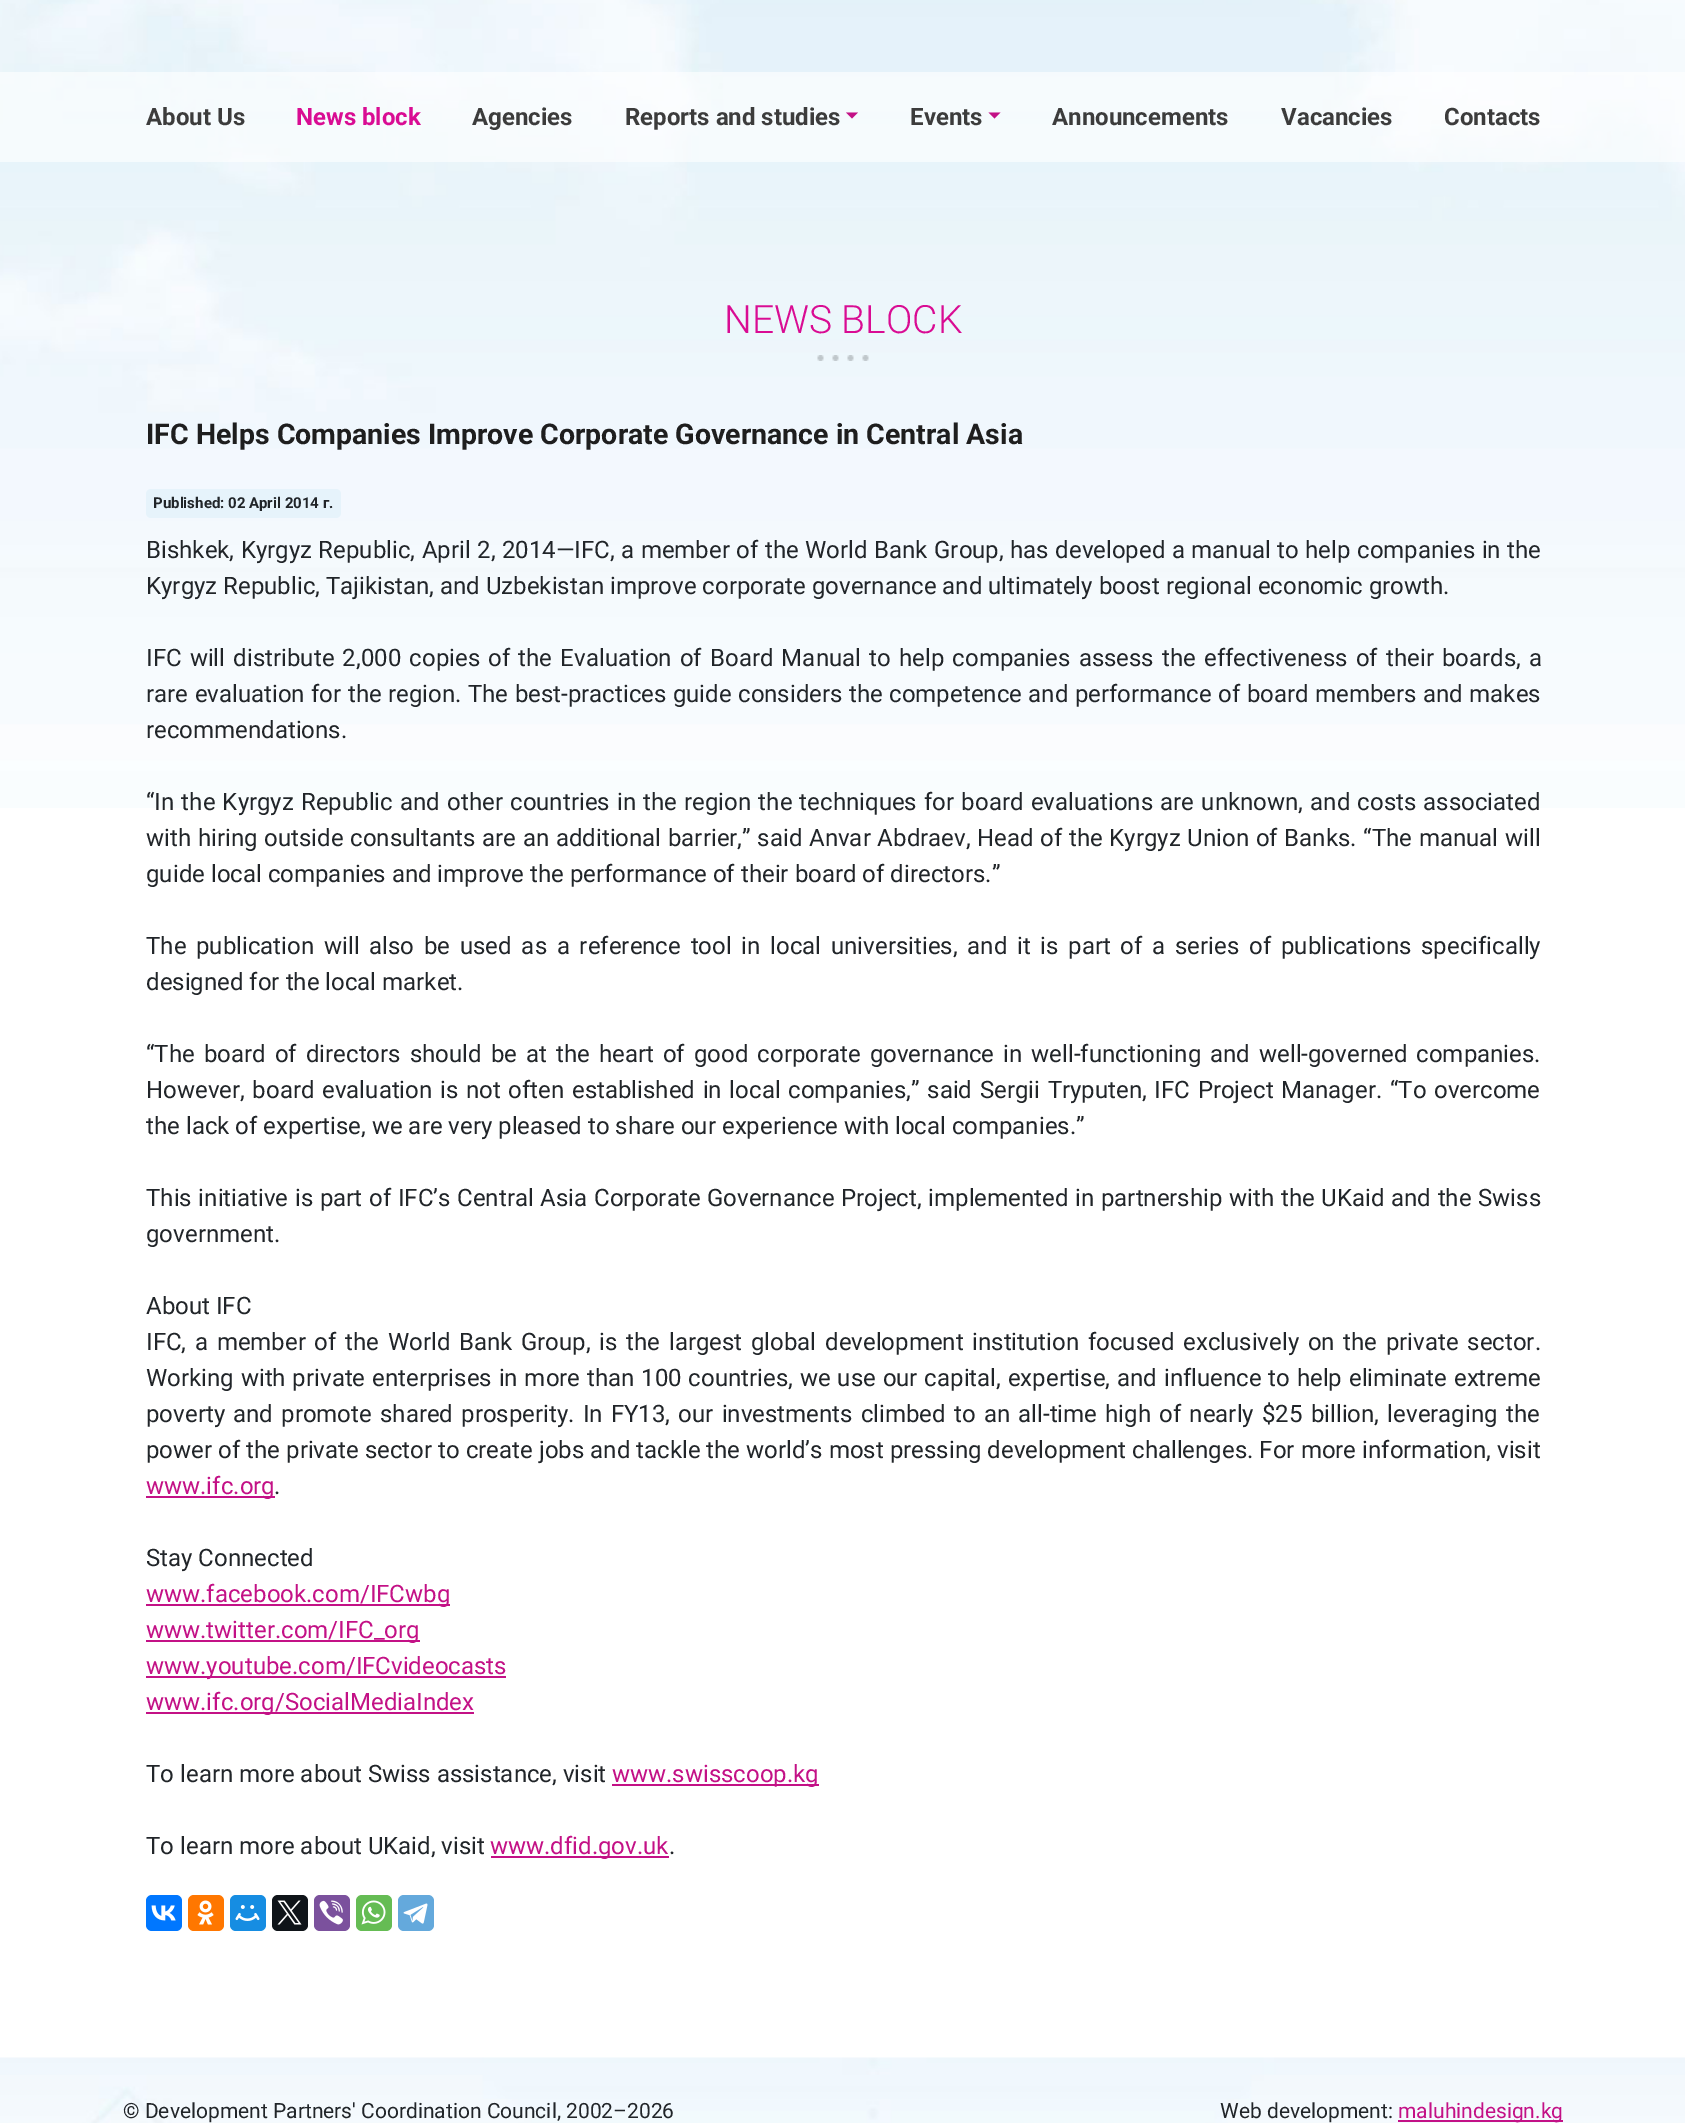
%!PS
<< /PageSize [1685 2123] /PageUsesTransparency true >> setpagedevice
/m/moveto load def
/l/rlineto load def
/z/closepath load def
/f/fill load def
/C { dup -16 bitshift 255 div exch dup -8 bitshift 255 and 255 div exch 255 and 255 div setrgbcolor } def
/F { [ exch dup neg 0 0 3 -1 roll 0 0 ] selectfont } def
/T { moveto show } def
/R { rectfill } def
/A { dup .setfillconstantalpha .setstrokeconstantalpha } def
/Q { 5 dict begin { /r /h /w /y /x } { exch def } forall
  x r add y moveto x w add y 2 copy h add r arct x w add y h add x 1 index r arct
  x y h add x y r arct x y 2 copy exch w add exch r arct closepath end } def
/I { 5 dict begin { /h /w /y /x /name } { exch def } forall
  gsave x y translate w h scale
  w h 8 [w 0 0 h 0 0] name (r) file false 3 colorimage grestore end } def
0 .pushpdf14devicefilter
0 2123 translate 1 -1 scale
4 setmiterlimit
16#FFFFFF C
0 0 1685 2123 R
(1.rgb) 0 0 1685 808 I
0.6 A
0 72 1685 90 R
/Roboto-Bold 24 F
1 A
16#3C3C3C C
(About Us) 146 125 T
16#D90C93 C
(News block) 296 125 T
16#3C3C3C C
(Agencies) 472 125 T
(Reports and studies) 625 125 T
16#C31186 C
846 112.5 m 12 0 l -6 6 l z f
16#3C3C3C C
(Events) 910 125 T
16#C31186 C
988.5 112.5 m 12 0 l -6 6 l z f
16#3C3C3C C
(Announcements) 1052 125 T
(Vacancies) 1281 125 T
(Contacts) 1444 125 T
/Roboto-Light 39 F
16#D90C93 C
(NEWS BLOCK) 724 333 T
(2.rgb) 817 355 52 6 I
/Roboto-Bold 28.5 F
16#1E1E1E C
(IFC Helps Companies Improve Corporate Governance in Central Asia) 146 444 T
16#E6F3FB C
146 489 195 29 5 Q f
/Roboto-Bold 15 F
16#212529 C
(Published: 02 April 2014 г.) 153 508 T
/Roboto-Regular 24 F
146 558 m .55 0 32 (Bishkek, Kyrgyz Republic, April 2, 2014—IFC, a member of the World Bank Group, has developed a manual to help companies in the) widthshow
(Kyrgyz Republic, Tajikistan, and Uzbekistan improve corporate governance and ultimately boost regional economic growth.) 146 594 T
146 666 m 2.25 0 32 (IFC will distribute 2,000 copies of the Evaluation of Board Manual to help companies assess the effectiveness of their boards, a) widthshow
146 702 m .5 0 32 (rare evaluation for the region. The best-practices guide considers the competence and performance of board members and makes) widthshow
(recommendations.) 146 738 T
146 810 m 1.25 0 32 (“In the Kyrgyz Republic and other countries in the region the techniques for board evaluations are unknown, and costs associated) widthshow
146 846 m .75 0 32 (with hiring outside consultants are an additional barrier,” said Anvar Abdraev, Head of the Kyrgyz Union of Banks. “The manual will) widthshow
(guide local companies and improve the performance of their board of directors.”) 146 882 T
146 954 m 3.8 0 32 (The publication will also be used as a reference tool in local universities, and it is part of a series of publications specifically) widthshow
(designed for the local market.) 146 990 T
146 1062 m 3.1 0 32 (“The board of directors should be at the heart of good corporate governance in well-functioning and well-governed companies.) widthshow
146 1098 m 1.75 0 32 (However, board evaluation is not often established in local companies,” said Sergii Tryputen, IFC Project Manager. “To overcome) widthshow
(the lack of expertise, we are very pleased to share our experience with local companies.”) 146 1134 T
146 1206 m .75 0 32 (This initiative is part of IFC’s Central Asia Corporate Governance Project, implemented in partnership with the UKaid and the Swiss) widthshow
(government.) 146 1242 T
(About IFC) 146 1314 T
146 1350 m 2.75 0 32 (IFC, a member of the World Bank Group, is the largest global development institution focused exclusively on the private sector.) widthshow
146 1386 m .9 0 32 (Working with private enterprises in more than 100 countries, we use our capital, expertise, and influence to help eliminate extreme) widthshow
146 1422 m 2.25 0 32 (poverty and promote shared prosperity. In FY13, our investments climbed to an all-time high of nearly $25 billion, leveraging the) widthshow
146 1458 m .1 0 32 (power of the private sector to create jobs and tackle the world’s most pressing development challenges. For more information, visit) widthshow
16#C31186 C
146 1496 129 2 R
(www.ifc.org) 146 1494 T
16#212529 C
(.) 274 1494 T
(Stay Connected) 146 1566 T
16#C31186 C
146 1604 304 2 R
(www.facebook.com/IFCwbg) 146 1602 T
146 1640 274 2 R
(www.twitter.com/IFC_org) 146 1638 T
146 1676 360 2 R
(www.youtube.com/IFCvideocasts) 146 1674 T
146 1712 328 2 R
(www.ifc.org/SocialMediaIndex) 146 1710 T
16#212529 C
(To learn more about Swiss assistance, visit) 146 1782 T
16#C31186 C
612 1784 207 2 R
(www.swisscoop.kg) 612 1782 T
16#212529 C
(To learn more about UKaid, visit) 146 1854 T
16#C31186 C
491 1856 178 2 R
(www.dfid.gov.uk) 490 1854 T
16#212529 C
(.) 669 1854 T
16#0077FF C
146 1895 36 36 6 Q f
(3.rgb) 151 1905 25 16 I
16#FF7700 C
188 1895 36 36 6 Q f
(4.rgb) 197 1900 17 25 I
16#168DE2 C
230 1895 36 36 6 Q f
(5.rgb) 235 1905 25 16 I
16#0F1419 C
272 1895 36 36 6 Q f
(6.rgb) 277 1900 25 25 I
16#7B519D C
314 1895 36 36 6 Q f
(7.rgb) 319 1900 24 25 I
16#65BC54 C
356 1895 36 36 6 Q f
(8.rgb) 361 1900 25 25 I
16#64A9DC C
398 1895 36 36 6 Q f
(9.rgb) 403 1903 25 21 I
(10.rgb) 0 2057 1685 66 I
/Roboto-Regular 21 F
16#212529 C
(© Development Partners' Coordination Council, 2002–2026) 123 2118 T
(Web development:) 1220 2118 T
16#C31186 C
1398 2120 165 2 R
(maluhindesign.kg) 1398 2118 T
.poppdf14devicefilter showpage
